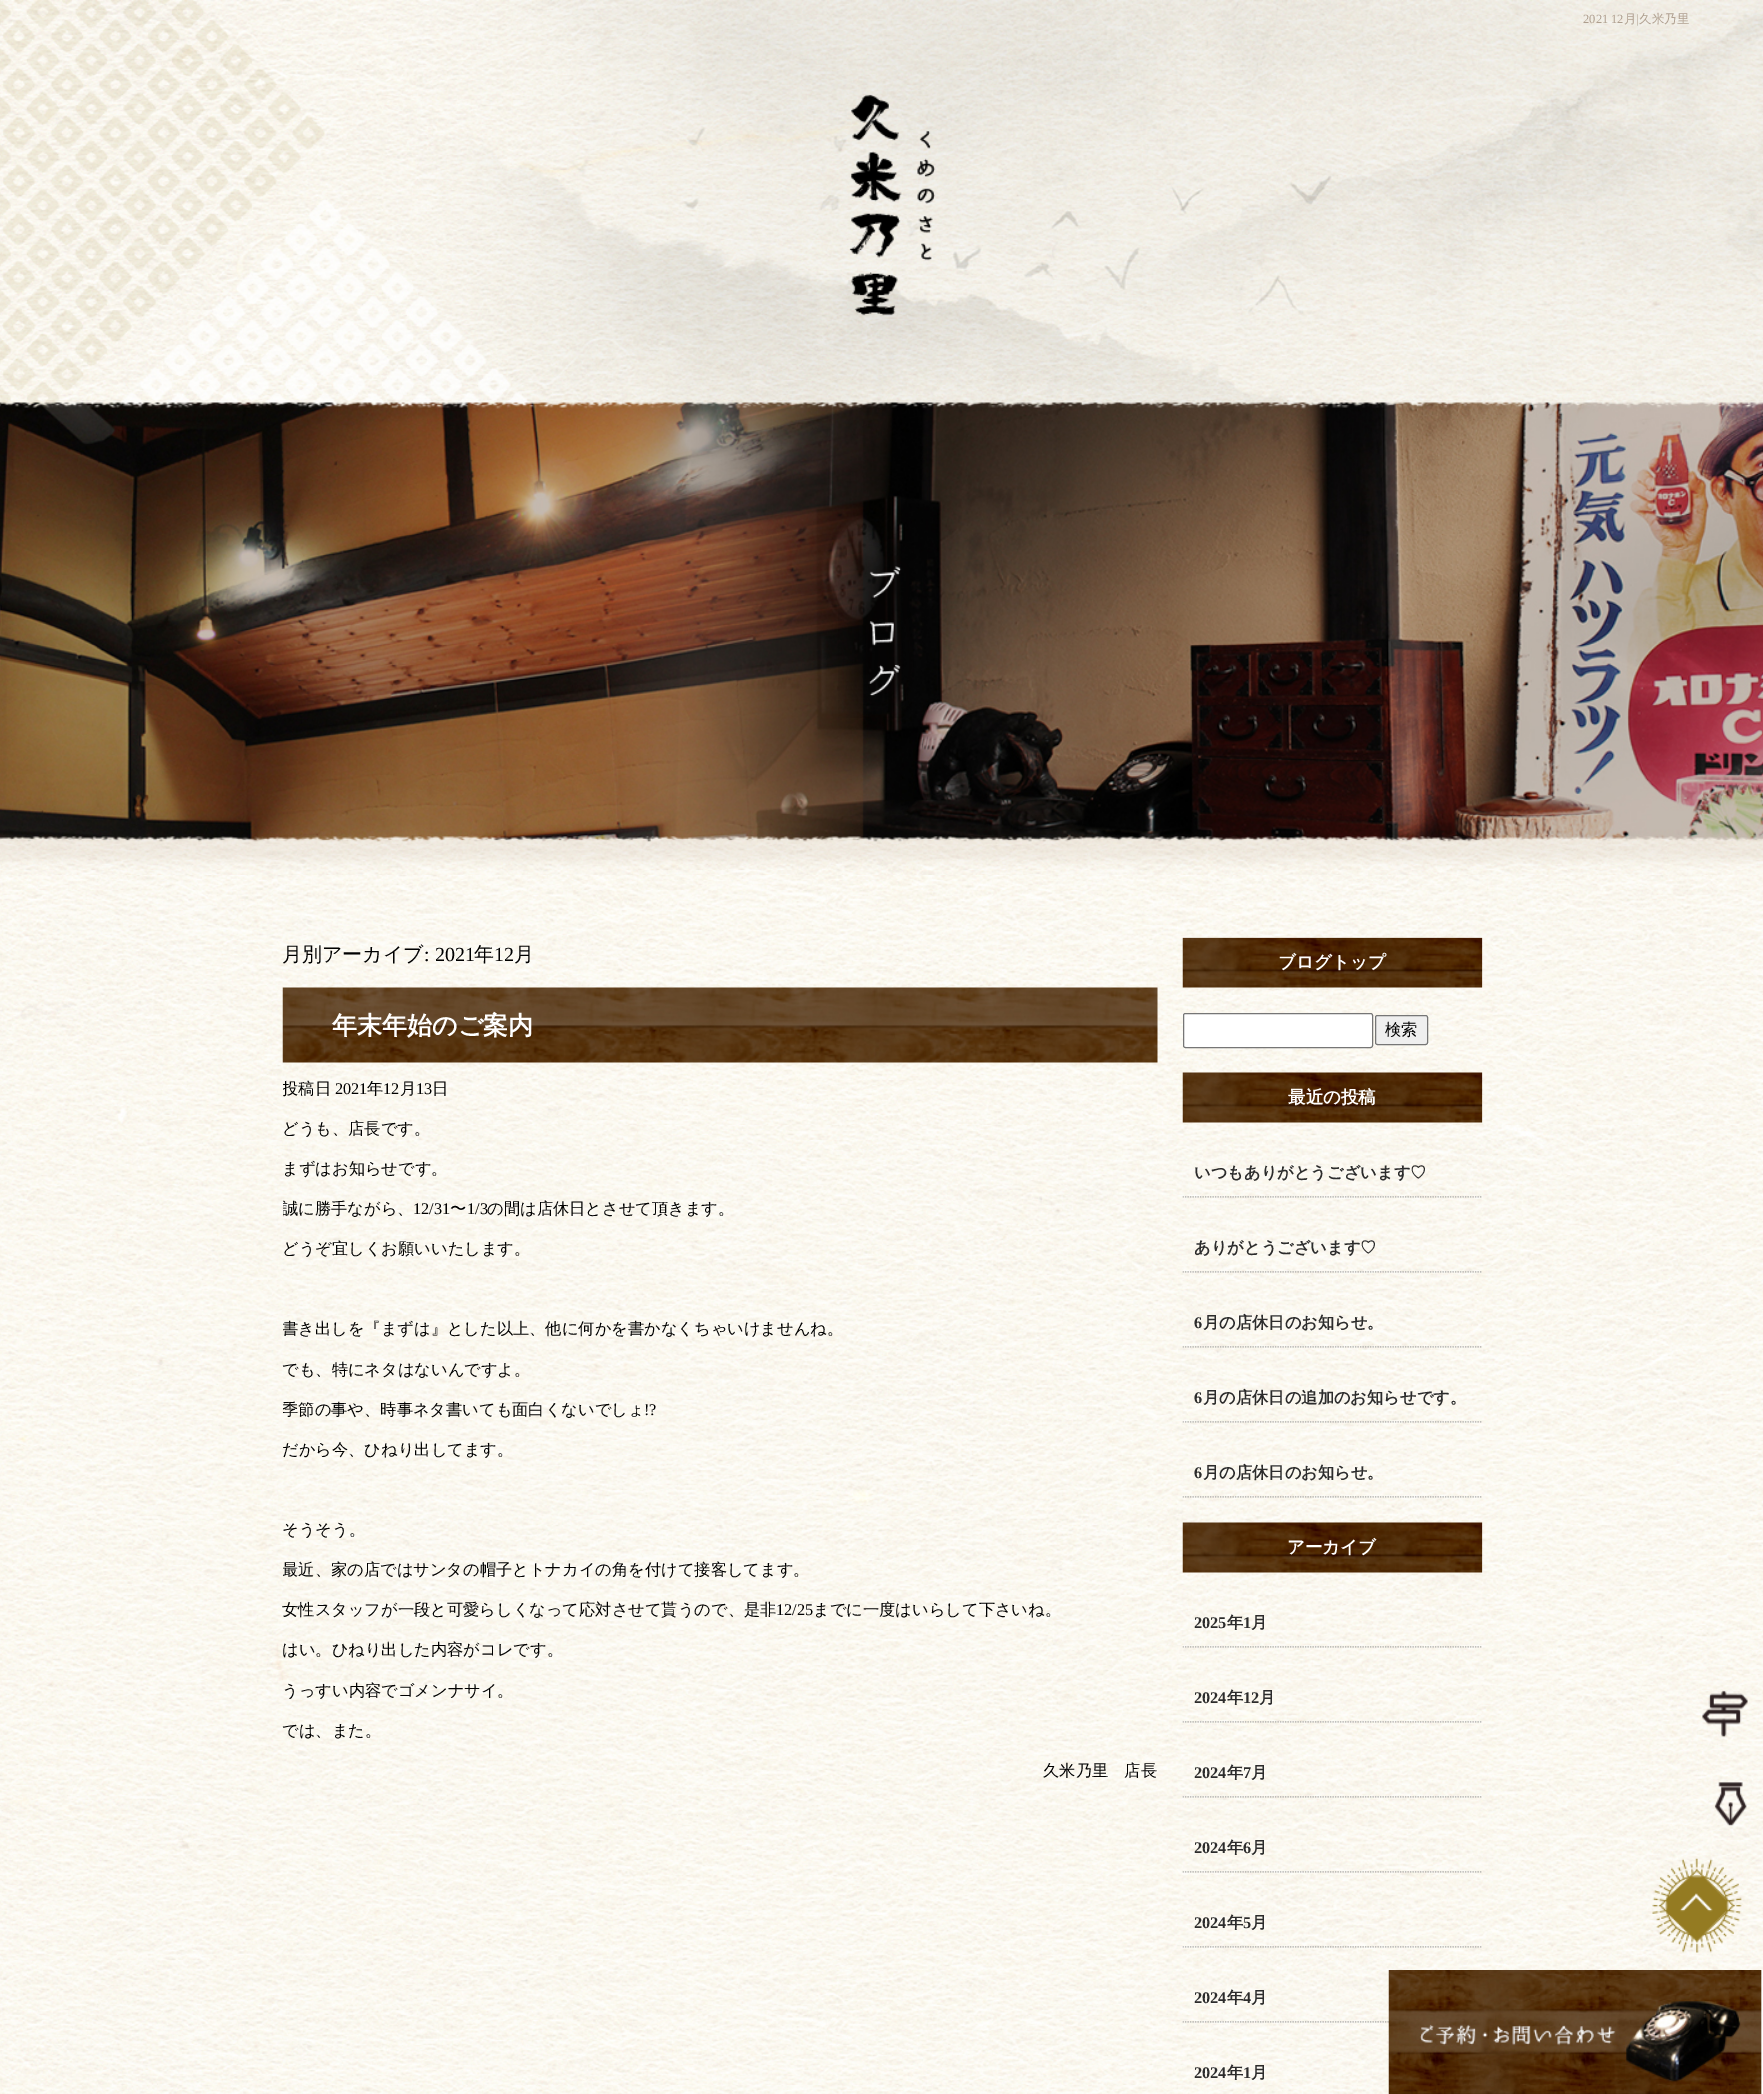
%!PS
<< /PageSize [1763 2094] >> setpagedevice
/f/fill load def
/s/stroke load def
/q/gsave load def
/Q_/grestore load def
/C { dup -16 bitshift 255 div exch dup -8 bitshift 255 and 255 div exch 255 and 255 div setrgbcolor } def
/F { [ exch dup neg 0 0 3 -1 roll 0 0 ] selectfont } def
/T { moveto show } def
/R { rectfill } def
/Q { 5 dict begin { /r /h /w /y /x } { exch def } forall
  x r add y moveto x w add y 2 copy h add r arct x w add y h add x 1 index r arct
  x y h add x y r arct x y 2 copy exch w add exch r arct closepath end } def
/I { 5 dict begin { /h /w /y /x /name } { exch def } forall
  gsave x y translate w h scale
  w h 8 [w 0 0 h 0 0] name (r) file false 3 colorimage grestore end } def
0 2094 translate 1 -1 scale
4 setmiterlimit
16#FFFFFF C
0 0 1763 2094 R
(1.rgb) 0 875 1763 1219 I
(2.rgb) 0 0 1763 875 I
(3.rgb) 849 94 87 222 I
/LiberationSerif-Regular 12.5 F
16#AE9E8E C
(2021 12) 1583 23 T
/WenQuanYiZenHei-Medium 12.5 F
(月) 1624 23 T
/LiberationSerif-Regular 12.5 F
(|) 1636 23 T
/WenQuanYiZenHei-Medium 12.5 F
(久米乃里) 1639 23 T
(4.rgb) 838 534 76 184 I
/WenQuanYiZenHei-Medium 20 F
16#000000 C
(月別アーカイブ) 282 961 T
/LiberationSerif-Regular 20 F
(: 2021) 424 961 T
/WenQuanYiZenHei-Medium 20 F
(年) 474 961 T
/LiberationSerif-Regular 20 F
(12) 494 961 T
/WenQuanYiZenHei-Medium 20 F
(月) 514 961 T
(5.rgb) 282 987 876 76 I
/WenQuanYiZenHei-Bold 25 F
16#FFFFFF C
(年末年始のご案内) 332 1034 T
q
283 938 1200 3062 rectclip
/WenQuanYiZenHei-Medium 16.25 F
16#000000 C
(投稿日) 282 1094 T
Q_
/LiberationSerif-Regular 16.25 F
16#000000 C
(2021) 335 1094 T
/WenQuanYiZenHei-Medium 16.25 F
(年) 367 1094 T
/LiberationSerif-Regular 16.25 F
(12) 383 1094 T
/WenQuanYiZenHei-Medium 16.25 F
(月) 400 1094 T
/LiberationSerif-Regular 16.25 F
(13) 416 1094 T
/WenQuanYiZenHei-Medium 16.25 F
(日) 432 1094 T
(どうも、店長です。) 282 1134 T
(まずはお知らせです。) 282 1174 T
q
283 938 1200 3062 rectclip
(誠に勝手ながら、) 282 1214 T
Q_
/LiberationSerif-Regular 16.25 F
(12/31) 413 1214 T
/WenQuanYiZenHei-Medium 16.25 F
(〜) 450 1214 T
/LiberationSerif-Regular 16.25 F
(1/3) 467 1214 T
/WenQuanYiZenHei-Medium 16.25 F
(の間は店休日とさせて頂きます。) 487 1214 T
(どうぞ宜しくお願いいたします。) 282 1254 T
q
283 938 1200 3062 rectclip
(書き出しを『まずは』とした以上、他に何かを書かなくちゃいけませんね。) 282 1334 T
Q_
(でも、特にネタはないんですよ。) 282 1375 T
q
283 938 1200 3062 rectclip
(季節の事や、時事ネタ書いても面白くないでしょ) 282 1415 T
Q_
/LiberationSerif-Regular 16.25 F
(!?) 644 1415 T
/WenQuanYiZenHei-Medium 16.25 F
(だから今、ひねり出してます。) 282 1455 T
(そうそう。) 282 1535 T
q
283 938 1200 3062 rectclip
(最近、家の店ではサンタの帽子とトナカイの角を付けて接客してます。) 282 1575 T
Q_
(女性スタッフが一段と可愛らしくなって応対させて貰うので、是非) 282 1615 T
/LiberationSerif-Regular 16.25 F
(12/25) 776 1615 T
/WenQuanYiZenHei-Medium 16.25 F
(までに一度はいらして下さいね。) 813 1615 T
(はい。ひねり出した内容がコレです。) 282 1655 T
(うっすい内容でゴメンナサイ。) 282 1696 T
(では、また。) 282 1736 T
(久米乃里　店長) 1043 1776 T
(6.rgb) 1182 937 301 51 I
/WenQuanYiZenHei-Bold 17.5 F
16#FFFFFF C
(ブログトップ) 1278 968 T
1183.5 1013.5 189 34 2 Q q f Q_
16#767676 C
s
16#EFEFEF C
1375.5 1015.5 52 29 2 Q q f Q_
16#767676 C
s
/WenQuanYiZenHei-Medium 16.25 F
16#000000 C
(検索) 1385 1035 T
(7.rgb) 1182 1072 301 51 I
/WenQuanYiZenHei-Bold 17.5 F
16#FFFFFF C
(最近の投稿) 1288 1103 T
(8.rgb) 1182 1196 300 2 I
/WenQuanYiZenHei-Bold 16.25 F
16#2C2C2C C
(いつもありがとうございます♡) 1194 1178 T
(9.rgb) 1182 1271 300 2 I
(ありがとうございます♡) 1194 1253 T
(10.rgb) 1182 1346 300 2 I
/LiberationSerif-Bold 16.25 F
(6) 1194 1328 T
/WenQuanYiZenHei-Bold 16.25 F
(月の店休日のお知らせ。) 1203 1328 T
(11.rgb) 1182 1421 300 2 I
/LiberationSerif-Bold 16.25 F
(6) 1194 1403 T
/WenQuanYiZenHei-Bold 16.25 F
(月の店休日の追加のお知らせです。) 1203 1403 T
(12.rgb) 1182 1496 300 2 I
/LiberationSerif-Bold 16.25 F
(6) 1194 1478 T
/WenQuanYiZenHei-Bold 16.25 F
(月の店休日のお知らせ。) 1203 1478 T
(13.rgb) 1182 1522 301 51 I
/WenQuanYiZenHei-Bold 17.5 F
16#FFFFFF C
(アーカイブ) 1287 1553 T
(14.rgb) 1182 1646 300 2 I
/LiberationSerif-Bold 16.25 F
16#2C2C2C C
(2025) 1194 1628 T
/WenQuanYiZenHei-Bold 16.25 F
(年) 1227 1628 T
/LiberationSerif-Bold 16.25 F
(1) 1243 1628 T
/WenQuanYiZenHei-Bold 16.25 F
(月) 1251 1628 T
(15.rgb) 1182 1721 300 2 I
/LiberationSerif-Bold 16.25 F
(2024) 1194 1703 T
/WenQuanYiZenHei-Bold 16.25 F
(年) 1227 1703 T
/LiberationSerif-Bold 16.25 F
(12) 1243 1703 T
/WenQuanYiZenHei-Bold 16.25 F
(月) 1259 1703 T
(16.rgb) 1182 1796 300 2 I
/LiberationSerif-Bold 16.25 F
(2024) 1194 1778 T
/WenQuanYiZenHei-Bold 16.25 F
(年) 1227 1778 T
/LiberationSerif-Bold 16.25 F
(7) 1243 1778 T
/WenQuanYiZenHei-Bold 16.25 F
(月) 1251 1778 T
(17.rgb) 1182 1871 300 2 I
/LiberationSerif-Bold 16.25 F
(2024) 1194 1853 T
/WenQuanYiZenHei-Bold 16.25 F
(年) 1227 1853 T
/LiberationSerif-Bold 16.25 F
(6) 1243 1853 T
/WenQuanYiZenHei-Bold 16.25 F
(月) 1251 1853 T
(18.rgb) 1182 1946 300 2 I
/LiberationSerif-Bold 16.25 F
(2024) 1194 1928 T
/WenQuanYiZenHei-Bold 16.25 F
(年) 1227 1928 T
/LiberationSerif-Bold 16.25 F
(5) 1243 1928 T
/WenQuanYiZenHei-Bold 16.25 F
(月) 1251 1928 T
(19.rgb) 1182 2021 207 2 I
/LiberationSerif-Bold 16.25 F
(2024) 1194 2003 T
/WenQuanYiZenHei-Bold 16.25 F
(年) 1227 2003 T
/LiberationSerif-Bold 16.25 F
(4) 1243 2003 T
/WenQuanYiZenHei-Bold 16.25 F
(月) 1251 2003 T
/LiberationSerif-Bold 16.25 F
(2024) 1194 2078 T
/WenQuanYiZenHei-Bold 16.25 F
(年) 1227 2078 T
/LiberationSerif-Bold 16.25 F
(1) 1243 2078 T
/WenQuanYiZenHei-Bold 16.25 F
(月) 1251 2078 T
(20.rgb) 1702 1690 46 48 I
(21.rgb) 1714 1782 33 44 I
(22.rgb) 1652 1858 90 95 I
(23.rgb) 1388 1970 375 124 I
showpage
